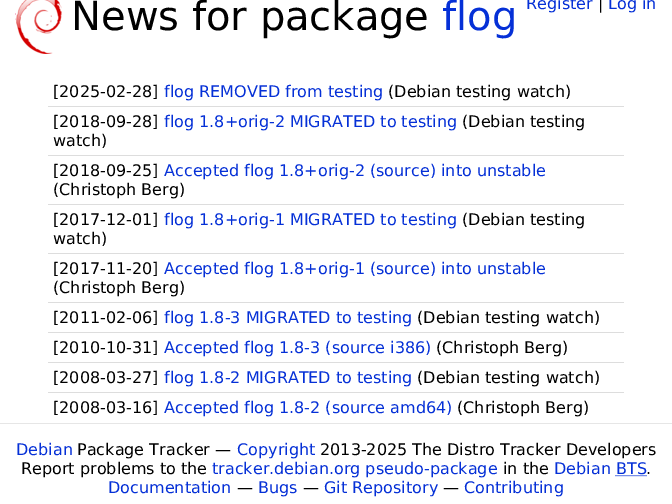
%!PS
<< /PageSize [672 504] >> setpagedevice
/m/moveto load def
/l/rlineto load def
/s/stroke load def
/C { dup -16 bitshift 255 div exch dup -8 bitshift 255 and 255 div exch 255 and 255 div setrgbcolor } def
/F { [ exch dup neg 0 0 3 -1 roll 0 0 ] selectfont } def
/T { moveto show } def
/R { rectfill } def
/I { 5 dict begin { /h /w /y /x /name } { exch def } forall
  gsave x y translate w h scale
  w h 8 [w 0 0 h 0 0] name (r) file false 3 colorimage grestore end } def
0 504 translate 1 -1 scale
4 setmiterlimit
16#FFFFFF C
0 0 672 504 R
(1.rgb) 15 0 47 54 I
/DejaVuSans-Regular 40 F
16#000000 C
(News for package) 71 30 T
16#0530D7 C
(flog) 442 30 T
/DejaVuSans-Regular 16 F
(Register) 526 9 T
16#000000 C
(|) 598 9 T
16#0530D7 C
(Log in) 608 9 T
16#DDDDDD C
48 106 576 1 R
16#000000 C
([2025-02-28]) 53 97 T
16#0530D7 C
(flog REMOVED from testing) 164 97 T
16#000000 C
(\(Debian testing watch\)) 388 97 T
16#DDDDDD C
48 155 576 1 R
16#000000 C
([2018-09-28]) 53 127 T
16#0530D7 C
(flog 1.8+orig-2 MIGRATED to testing) 164 127 T
16#000000 C
(\(Debian testing) 462 127 T
(watch\)) 53 146 T
16#DDDDDD C
48 204 576 1 R
16#000000 C
([2018-09-25]) 53 176 T
16#0530D7 C
(Accepted flog 1.8+orig-2 \(source\) into unstable) 164 176 T
16#000000 C
(\(Christoph Berg\)) 53 195 T
16#DDDDDD C
48 253 576 1 R
16#000000 C
([2017-12-01]) 53 225 T
16#0530D7 C
(flog 1.8+orig-1 MIGRATED to testing) 164 225 T
16#000000 C
(\(Debian testing) 462 225 T
(watch\)) 53 244 T
16#DDDDDD C
48 302 576 1 R
16#000000 C
([2017-11-20]) 53 274 T
16#0530D7 C
(Accepted flog 1.8+orig-1 \(source\) into unstable) 164 274 T
16#000000 C
(\(Christoph Berg\)) 53 293 T
16#DDDDDD C
48 332 576 1 R
16#000000 C
([2011-02-06]) 53 323 T
16#0530D7 C
(flog 1.8-3 MIGRATED to testing) 164 323 T
16#000000 C
(\(Debian testing watch\)) 417 323 T
16#DDDDDD C
48 362 576 1 R
16#000000 C
([2010-10-31]) 53 353 T
16#0530D7 C
(Accepted flog 1.8-3 \(source i386\)) 164 353 T
16#000000 C
(\(Christoph Berg\)) 436 353 T
([2008-03-27]) 53 383 T
16#0530D7 C
(flog 1.8-2 MIGRATED to testing) 164 383 T
16#000000 C
(\(Debian testing watch\)) 417 383 T
16#DDDDDD C
48 392 576 1 R
16#000000 C
([2008-03-16]) 53 413 T
16#0530D7 C
(Accepted flog 1.8-2 \(source amd64\)) 164 413 T
16#000000 C
(\(Christoph Berg\)) 457 413 T
16#E6E6E6 C
0 423 672 1 R
16#0530D7 C
(Debian) 16 455 T
16#000000 C
(Package Tracker —) 77 455 T
16#0530D7 C
(Copyright) 237 455 T
16#000000 C
(2013-2025 The Distro Tracker Developers) 320 455 T
(Report problems to the) 21 474 T
16#0530D7 C
(tracker.debian.org pseudo-package) 212 474 T
16#000000 C
(in the) 503 474 T
16#0530D7 C
(Debian BTS) 554 474 T
[1 1] 0 setdash
615.5 475.5 m 31 0 l s
16#000000 C
(.) 646 474 T
16#0530D7 C
(Documentation) 108 493 T
16#000000 C
(—) 237 493 T
16#0530D7 C
(Bugs) 258 493 T
16#000000 C
(—) 303 493 T
16#0530D7 C
(Git Repository) 324 493 T
16#000000 C
(—) 443 493 T
16#0530D7 C
(Contributing) 464 493 T
showpage
